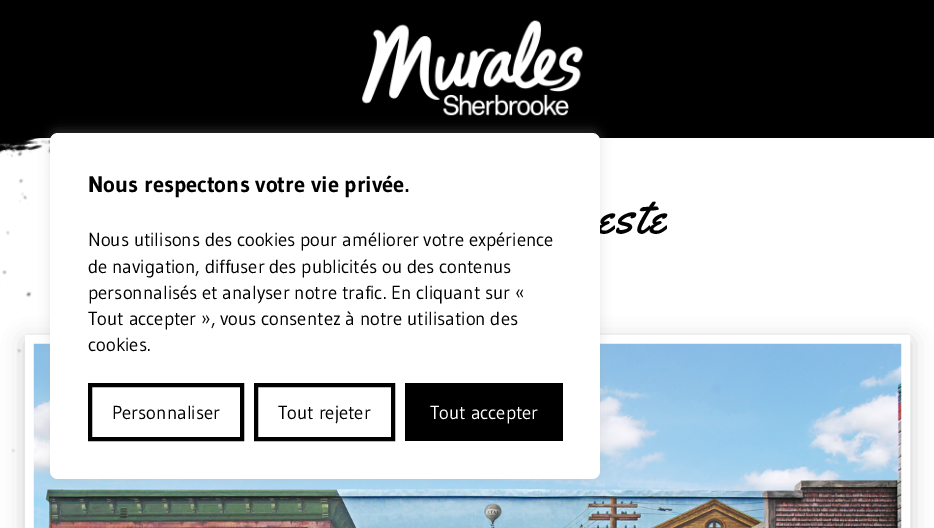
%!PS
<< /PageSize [934 528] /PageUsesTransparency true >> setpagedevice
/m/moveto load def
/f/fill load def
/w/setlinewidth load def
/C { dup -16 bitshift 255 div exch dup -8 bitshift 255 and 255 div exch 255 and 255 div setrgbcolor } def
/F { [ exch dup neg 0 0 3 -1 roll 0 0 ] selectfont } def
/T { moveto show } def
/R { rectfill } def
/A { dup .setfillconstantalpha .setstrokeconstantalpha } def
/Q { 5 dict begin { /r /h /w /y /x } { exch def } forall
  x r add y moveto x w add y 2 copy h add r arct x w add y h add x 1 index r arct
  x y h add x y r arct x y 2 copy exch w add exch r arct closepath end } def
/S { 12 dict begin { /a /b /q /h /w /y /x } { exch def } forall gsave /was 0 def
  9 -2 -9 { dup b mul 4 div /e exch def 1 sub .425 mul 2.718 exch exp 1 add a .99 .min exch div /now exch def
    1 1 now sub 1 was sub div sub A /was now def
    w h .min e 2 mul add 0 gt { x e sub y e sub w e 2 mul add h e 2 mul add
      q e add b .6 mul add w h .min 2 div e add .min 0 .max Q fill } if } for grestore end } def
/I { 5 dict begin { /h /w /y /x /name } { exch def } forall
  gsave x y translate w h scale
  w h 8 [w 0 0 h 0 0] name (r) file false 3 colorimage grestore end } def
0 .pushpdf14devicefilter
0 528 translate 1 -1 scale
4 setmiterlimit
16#FFFFFF C
0 0 934 528 R
16#000000 C
0 0 934 138 R
(1.rgb) 362 20 221 96 I
(2.rgb) 0 138 51 315 I
25 341 885 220 0 11 .2 S
16#FFFFFF C
9 w
29.5 339.5 876 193 rectstroke
(3.rgb) 33 343 869 185 I
16#ACABAB C
50 131 550 347 8 6 .3 S
/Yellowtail-Regular 50 F
16#000000 C
597 233 m 2.5 0 (este) ashow
16#FFFFFF C
50 133 550 346 8 Q f
/Gudea-Bold 22.5 F
16#000000 C
(Nous respectons votre vie privée.) 88 192 T
/Gudea-Regular 18.75 F
(Nous utilisons des cookies pour améliorer votre expérience) 88 246 T
(de navigation, diffuser des publicités ou des contenus) 88 273 T
(personnalisés et analyser notre trafic. En cliquant sur «) 88 299 T
(Tout accepter », vous consentez à notre utilisation des) 88 325 T
(cookies.) 88 351 T
4 w
90 385 152 54 rectstroke
(Personnaliser) 112 419 T
256 385 137 54 rectstroke
(Tout rejeter) 278 419 T
405 383 158 58 R
16#FFFFFF C
(Tout accepter) 430 419 T
.poppdf14devicefilter showpage
